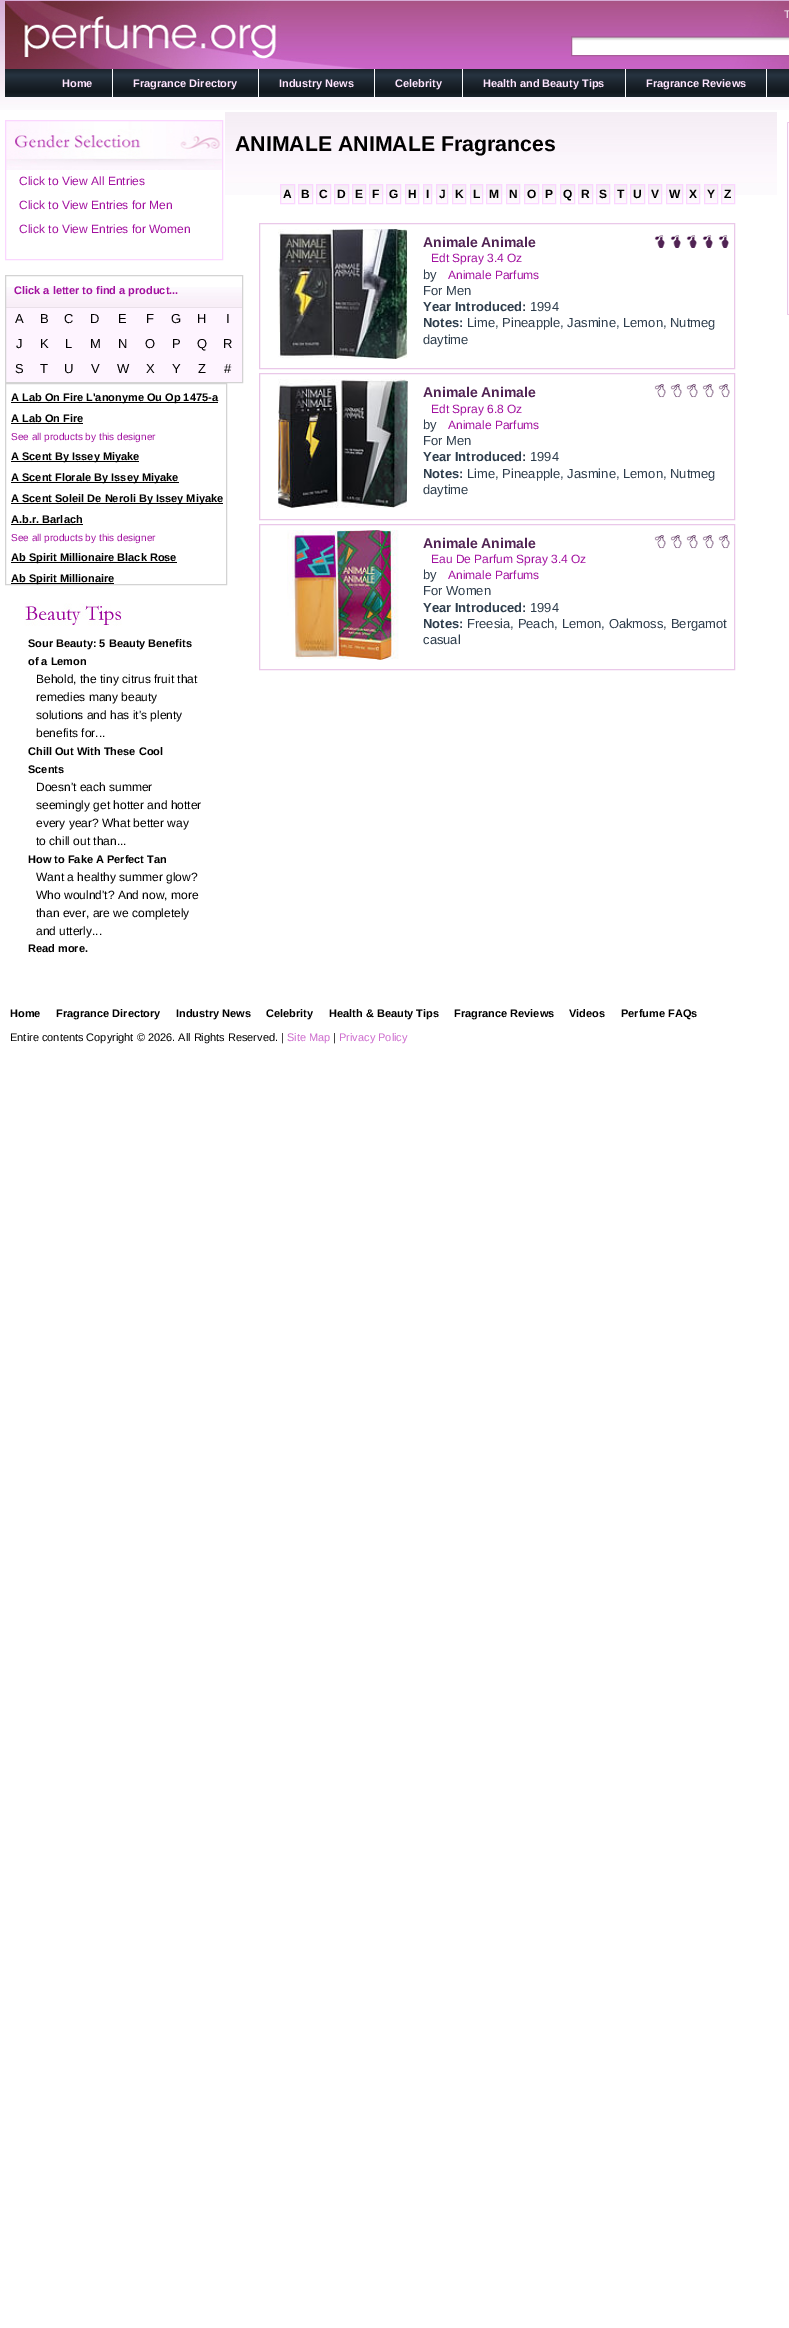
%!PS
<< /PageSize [789 2328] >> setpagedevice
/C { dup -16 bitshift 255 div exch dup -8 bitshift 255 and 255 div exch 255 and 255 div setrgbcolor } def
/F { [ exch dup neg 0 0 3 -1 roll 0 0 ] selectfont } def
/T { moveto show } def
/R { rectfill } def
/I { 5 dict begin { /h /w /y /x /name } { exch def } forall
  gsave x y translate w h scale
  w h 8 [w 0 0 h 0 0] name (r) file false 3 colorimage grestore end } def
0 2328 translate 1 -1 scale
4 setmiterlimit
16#FFFFFF C
0 0 789 2328 R
(1.rgb) 0 0 789 110 I
(2.rgb) 5 1 784 68 I
/LiberationSans-Regular 11 F
(T) 784 18 T
(3.rgb) 572 37 217 18 I
16#A85C99 C
571.5 36.5 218 19 rectstroke
(4.rgb) 5 69 784 28 I
/LiberationSans-Bold 11 F
16#FFE5FF C
(Home) 62 87 T
16#F9FAFB C
112 69 1 28 R
16#FFE5FF C
(Fragrance Directory) 133 87 T
16#F9FAFB C
258 69 1 28 R
16#FFE5FF C
(Industry News) 279 87 T
16#F9FAFB C
374 69 1 28 R
16#FFE5FF C
(Celebrity) 395 87 T
16#F9FAFB C
462 69 1 28 R
16#FFE5FF C
(Health and Beauty Tips) 483 87 T
16#F9FAFB C
625 69 1 28 R
16#FFE5FF C
(Fragrance Reviews) 646 87 T
16#F9FAFB C
766 69 1 28 R
(5.rgb) 6 121 216 49 I
16#FBD6FF C
5.5 120.5 217 139 rectstroke
/LiberationSans-Regular 12 F
16#A2109F C
(Click to View All Entries) 19 185 T
(Click to View Entries for Men) 19 209 T
(Click to View Entries for Women) 19 233 T
(6.rgb) 6 287 236 95 I
16#D3D3D3 C
5.5 275.5 237 107 rectstroke
/LiberationSans-Bold 11 F
16#A2109F C
(Click a letter to find a product...) 14 294 T
/LiberationSans-Regular 13 F
16#000000 C
(A) 15 323 T
(B) 40 323 T
(C) 64 323 T
(D) 90 323 T
(E) 118 323 T
(F) 146 323 T
(G) 171 323 T
(H) 197 323 T
(I) 226 323 T
(J) 16 348 T
(K) 40 348 T
(L) 65 348 T
(M) 90 348 T
(N) 118 348 T
(O) 145 348 T
(P) 172 348 T
(Q) 197 348 T
(R) 223 348 T
(S) 15 373 T
(T) 40 373 T
(U) 64 373 T
(V) 91 373 T
(W) 117 373 T
(X) 146 373 T
(Y) 172 373 T
(Z) 198 373 T
(#) 224 373 T
16#D3D3D3 C
5.5 383.5 221 201 rectstroke
16#000000 C
11 402 207 1 R
/LiberationSans-Bold 11 F
(A Lab On Fire L'anonyme Ou Op 1475-a) 11 401 T
(A Lab On Fire) 11 422 T
11 423 72 1 R
/LiberationSans-Regular 10 F
16#A2109F C
(See all products by this designer) 11 440 T
16#000000 C
11 461 128 1 R
/LiberationSans-Bold 11 F
(A Scent By Issey Miyake) 11 460 T
11 482 168 1 R
(A Scent Florale By Issey Miyake) 11 481 T
11 503 212 1 R
(A Scent Soleil De Neroli By Issey Miyake) 11 502 T
(A.b.r. Barlach) 11 523 T
11 524 72 1 R
/LiberationSans-Regular 10 F
16#A2109F C
(See all products by this designer) 11 541 T
16#000000 C
11 562 166 1 R
/LiberationSans-Bold 11 F
(Ab Spirit Millionaire Black Rose) 11 561 T
11 583 103 1 R
(Ab Spirit Millionaire) 11 582 T
(7.rgb) 24 603 98 23 I
(Sour Beauty: 5 Beauty Benefits) 28 647 T
(of a Lemon) 28 665 T
/LiberationSans-Regular 12 F
(Behold, the tiny citrus fruit that) 36 683 T
(remedies many beauty) 36 701 T
(solutions and has it's plenty) 36 719 T
(benefits for...) 36 737 T
/LiberationSans-Bold 11 F
(Chill Out With These Cool) 28 755 T
(Scents) 28 773 T
/LiberationSans-Regular 12 F
(Doesn't each summer) 36 791 T
(seemingly get hotter and hotter) 36 809 T
(every year? What better way) 36 827 T
(to chill out than...) 36 845 T
/LiberationSans-Bold 11 F
(How to Fake A Perfect Tan) 28 863 T
/LiberationSans-Regular 12 F
(Want a healthy summer glow?) 36 881 T
(Who woulnd't? And now, more) 36 899 T
(than ever, are we completely) 36 917 T
(and utterly...) 36 935 T
/LiberationSans-Bold 11 F
(Read more.) 28 952 T
(8.rgb) 225 112 552 83 I
/LiberationSans-Bold 21.3 F
(ANIMALE ANIMALE Fragrances) 235 151 T
(9.rgb) 281 185 13 18 I
(9.rgb) 299 185 13 18 I
(9.rgb) 317 185 13 18 I
(9.rgb) 335 185 13 18 I
(10.rgb) 353 185 12 18 I
(10.rgb) 370 185 12 18 I
(9.rgb) 387 185 13 18 I
(10.rgb) 406 185 12 18 I
(11.rgb) 424 185 7 18 I
(12.rgb) 437 185 10 18 I
(10.rgb) 453 185 12 18 I
(13.rgb) 471 185 11 18 I
(14.rgb) 487 185 14 18 I
(10.rgb) 507 185 12 18 I
(9.rgb) 525 185 13 18 I
(10.rgb) 543 185 12 18 I
(9.rgb) 561 185 13 18 I
(9.rgb) 579 185 13 18 I
(10.rgb) 597 185 12 18 I
(13.rgb) 615 185 11 18 I
(9.rgb) 631 185 13 18 I
(10.rgb) 649 185 12 18 I
(15.rgb) 667 185 15 18 I
(10.rgb) 687 185 12 18 I
(10.rgb) 705 185 12 18 I
(10.rgb) 722 185 12 18 I
16#FBD6FF C
280.5 184.5 14 19 rectstroke
/LiberationSans-Bold 12 F
16#000000 C
(A) 283 198 T
16#FBD6FF C
298.5 184.5 14 19 rectstroke
16#000000 C
(B) 301 198 T
16#FBD6FF C
316.5 184.5 14 19 rectstroke
16#000000 C
(C) 319 198 T
16#FBD6FF C
334.5 184.5 14 19 rectstroke
16#000000 C
(D) 337 198 T
16#FBD6FF C
352.5 184.5 13 19 rectstroke
16#000000 C
(E) 355 198 T
16#FBD6FF C
369.5 184.5 13 19 rectstroke
16#000000 C
(F) 372 198 T
16#FBD6FF C
386.5 184.5 14 19 rectstroke
16#000000 C
(G) 389 198 T
16#FBD6FF C
405.5 184.5 13 19 rectstroke
16#000000 C
(H) 408 198 T
16#FBD6FF C
423.5 184.5 8 19 rectstroke
16#000000 C
(I) 426 198 T
16#FBD6FF C
436.5 184.5 11 19 rectstroke
16#000000 C
(J) 439 198 T
16#FBD6FF C
452.5 184.5 13 19 rectstroke
16#000000 C
(K) 455 198 T
16#FBD6FF C
470.5 184.5 12 19 rectstroke
16#000000 C
(L) 473 198 T
16#FBD6FF C
486.5 184.5 15 19 rectstroke
16#000000 C
(M) 489 198 T
16#FBD6FF C
506.5 184.5 13 19 rectstroke
16#000000 C
(N) 509 198 T
16#FBD6FF C
524.5 184.5 14 19 rectstroke
16#000000 C
(O) 527 198 T
16#FBD6FF C
542.5 184.5 13 19 rectstroke
16#000000 C
(P) 545 198 T
16#FBD6FF C
560.5 184.5 14 19 rectstroke
16#000000 C
(Q) 563 198 T
16#FBD6FF C
578.5 184.5 14 19 rectstroke
16#000000 C
(R) 581 198 T
16#FBD6FF C
596.5 184.5 13 19 rectstroke
16#000000 C
(S) 599 198 T
16#FBD6FF C
614.5 184.5 12 19 rectstroke
16#000000 C
(T) 617 198 T
16#FBD6FF C
630.5 184.5 14 19 rectstroke
16#000000 C
(U) 633 198 T
16#FBD6FF C
648.5 184.5 13 19 rectstroke
16#000000 C
(V) 651 198 T
16#FBD6FF C
666.5 184.5 16 19 rectstroke
16#000000 C
(W) 669 198 T
16#FBD6FF C
686.5 184.5 13 19 rectstroke
16#000000 C
(X) 689 198 T
16#FBD6FF C
704.5 184.5 13 19 rectstroke
16#000000 C
(Y) 707 198 T
16#FBD6FF C
721.5 184.5 13 19 rectstroke
16#000000 C
(Z) 724 198 T
16#EAC8E9 C
259.5 223.5 475 145 rectstroke
(16.rgb) 278 229 130 130 I
/LiberationSans-Bold 14 F
16#512354 C
(Animale Animale) 423 247 T
(17.rgb) 654 234 12 14 I
(17.rgb) 670 234 12 14 I
(17.rgb) 686 234 12 14 I
(17.rgb) 702 234 12 14 I
(17.rgb) 718 234 12 14 I
/LiberationSans-Regular 12 F
16#A2109F C
(Edt Spray 3.4 Oz) 431 262 T
/LiberationSans-Regular 13 F
16#2E3D4C C
(by) 423 279 T
/LiberationSans-Regular 12 F
16#A2109F C
(Animale Parfums) 448 279 T
/LiberationSans-Regular 13 F
16#2E3D4C C
(For Men) 423 295 T
/LiberationSans-Bold 13 F
(Year Introduced:) 423 311 T
/LiberationSans-Regular 13 F
(1994) 530 311 T
/LiberationSans-Bold 13 F
(Notes:) 423 327 T
/LiberationSans-Regular 13 F
(Lime, Pineapple, Jasmine, Lemon, Nutmeg) 467 327 T
(daytime) 423 344 T
16#EAC8E9 C
259.5 373.5 475 146 rectstroke
(18.rgb) 278 379 130 129 I
/LiberationSans-Bold 14 F
16#512354 C
(Animale Animale) 423 397 T
(19.rgb) 654 384 12 14 I
(19.rgb) 670 384 12 14 I
(19.rgb) 686 384 12 14 I
(19.rgb) 702 384 12 14 I
(19.rgb) 718 384 12 14 I
/LiberationSans-Regular 12 F
16#A2109F C
(Edt Spray 6.8 Oz) 431 413 T
/LiberationSans-Regular 13 F
16#2E3D4C C
(by) 423 429 T
/LiberationSans-Regular 12 F
16#A2109F C
(Animale Parfums) 448 429 T
/LiberationSans-Regular 13 F
16#2E3D4C C
(For Men) 423 445 T
/LiberationSans-Bold 13 F
(Year Introduced:) 423 461 T
/LiberationSans-Regular 13 F
(1994) 530 461 T
/LiberationSans-Bold 13 F
(Notes:) 423 478 T
/LiberationSans-Regular 13 F
(Lime, Pineapple, Jasmine, Lemon, Nutmeg) 467 478 T
(daytime) 423 494 T
16#EAC8E9 C
259.5 524.5 475 145 rectstroke
(20.rgb) 287 530 112 130 I
/LiberationSans-Bold 14 F
16#512354 C
(Animale Animale) 423 548 T
(19.rgb) 654 535 12 14 I
(19.rgb) 670 535 12 14 I
(19.rgb) 686 535 12 14 I
(19.rgb) 702 535 12 14 I
(19.rgb) 718 535 12 14 I
/LiberationSans-Regular 12 F
16#A2109F C
(Eau De Parfum Spray 3.4 Oz) 431 563 T
/LiberationSans-Regular 13 F
16#2E3D4C C
(by) 423 579 T
/LiberationSans-Regular 12 F
16#A2109F C
(Animale Parfums) 448 579 T
/LiberationSans-Regular 13 F
16#2E3D4C C
(For Women) 423 595 T
/LiberationSans-Bold 13 F
(Year Introduced:) 423 612 T
/LiberationSans-Regular 13 F
(1994) 530 612 T
/LiberationSans-Bold 13 F
(Notes:) 423 628 T
/LiberationSans-Regular 13 F
(Freesia, Peach, Lemon, Oakmoss, Bergamot) 467 628 T
(casual) 423 644 T
16#EED1ED C
787 122 1 1 R
16#EAC8E9 C
788 122 1 1 R
787 123 1 191 R
16#FEF4FF C
788 123 1 191 R
16#EBCCE8 C
787 314 1 1 R
16#EAC8E9 C
788 314 1 1 R
/LiberationSans-Bold 11 F
16#000000 C
(Home) 10 1017 T
(Fragrance Directory) 56 1017 T
(Industry News) 176 1017 T
(Celebrity) 266 1017 T
(Health & Beauty Tips) 329 1017 T
(Fragrance Reviews) 454 1017 T
(Videos) 569 1017 T
(Perfume FAQs) 621 1017 T
/LiberationSans-Regular 11 F
(Entire contents Copyright © 2026. All Rights Reserved. |) 10 1041 T
16#CE6DCE C
(Site Map) 287 1041 T
16#000000 C
(|) 333 1041 T
16#CE6DCE C
(Privacy Policy) 339 1041 T
showpage
